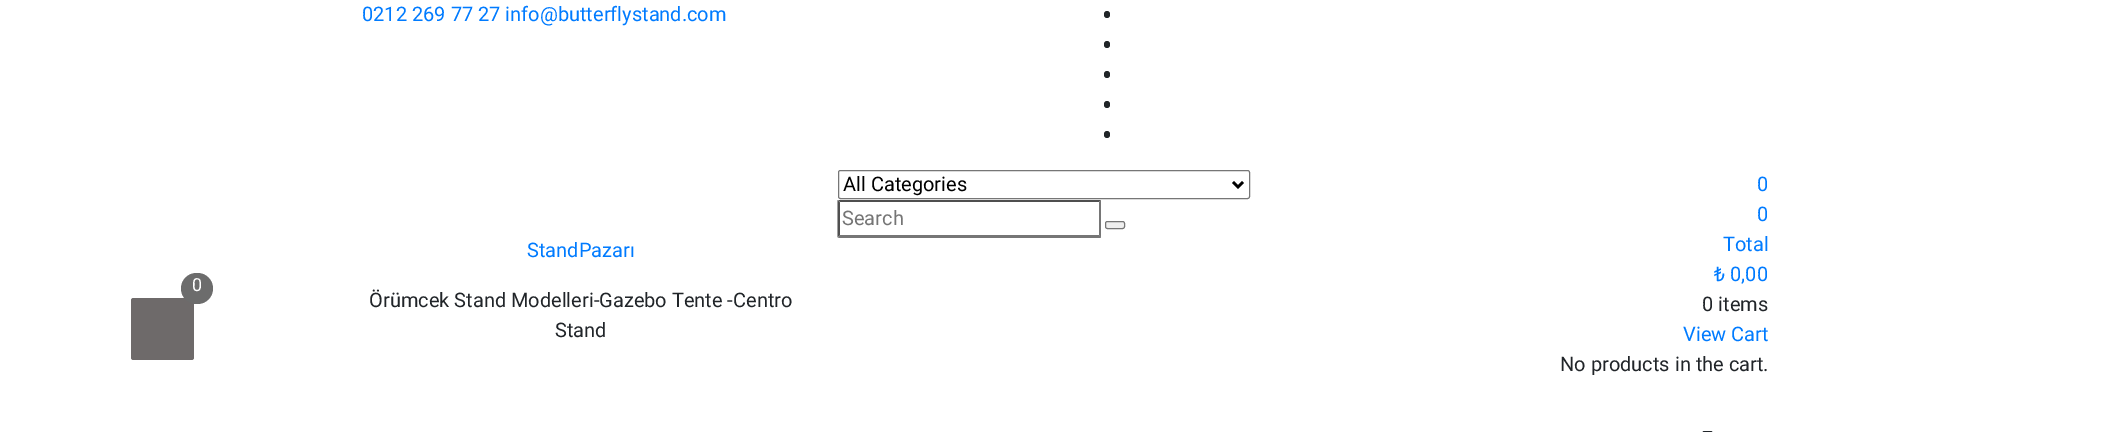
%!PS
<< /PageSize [2111 432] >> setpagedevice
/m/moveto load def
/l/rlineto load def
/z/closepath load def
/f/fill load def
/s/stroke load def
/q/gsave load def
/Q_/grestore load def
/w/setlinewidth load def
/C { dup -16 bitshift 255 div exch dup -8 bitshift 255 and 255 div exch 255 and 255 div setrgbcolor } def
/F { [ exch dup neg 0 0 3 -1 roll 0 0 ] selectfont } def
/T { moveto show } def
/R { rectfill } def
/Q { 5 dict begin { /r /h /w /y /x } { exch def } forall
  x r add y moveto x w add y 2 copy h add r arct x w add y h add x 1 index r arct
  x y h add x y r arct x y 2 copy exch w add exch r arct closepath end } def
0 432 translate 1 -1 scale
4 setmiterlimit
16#FFFFFF C
0 0 2111 432 R
16#6E6A6A C
131 298 63 62 2.5 Q f
16#6C6C6C C
181 273 32 31 15.5 Q f
/Roboto-Regular 18 F
16#FFFFFF C
(0) 192 291 T
/Roboto-Regular 20 F
16#007BFF C
(0212 269 77 27 info@butterflystand.com) 362 21 T
16#212529 C
1104 11 6 7 3 Q f
1104 41 6 7 3 Q f
1104 71 6 7 3 Q f
1104 101 6 7 3 Q f
1104 131 6 7 3 Q f
16#007BFF C
(StandPazarı) 527 257 T
16#212529 C
(Örümcek Stand Modelleri-Gazebo Tente -Centro) 369 307 T
(Stand) 555 337 T
16#767676 C
838.5 170.5 411 28 2 Q s
16#000000 C
2.5 w
1233 182 m 5 5 l 5 -5 l s
(All Categories) 843 191 T
16#4F4F4F C
838 200 m 263 0 l -2 2 l -259 0 l z f
16#767676 C
1101 200 m 0 37.5 l -2 -2.5 l 0 -32.5 l z f
1101 238 m -263 0 l 2 -3 l 259 0 l z f
16#4F4F4F C
837.5 237.5 m 0 -37.5 l 2.5 2.5 l 0 32.5 l z f
16#757575 C
(Search) 842 225 T
16#EFEFEF C
1105.5 221.5 19 7 2 Q q f Q_
16#767676 C
1 w
s
16#007BFF C
(0) 1757 191 T
(0) 1757 221 T
(Total) 1723 251 T
(₺ 0,00) 1714 281 T
16#212529 C
(0 items) 1702 311 T
16#007BFF C
(View Cart) 1683 341 T
16#212529 C
(No products in the cart.) 1560 371 T
1702.5 431 m 10 0 l -5 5 l z f
showpage
